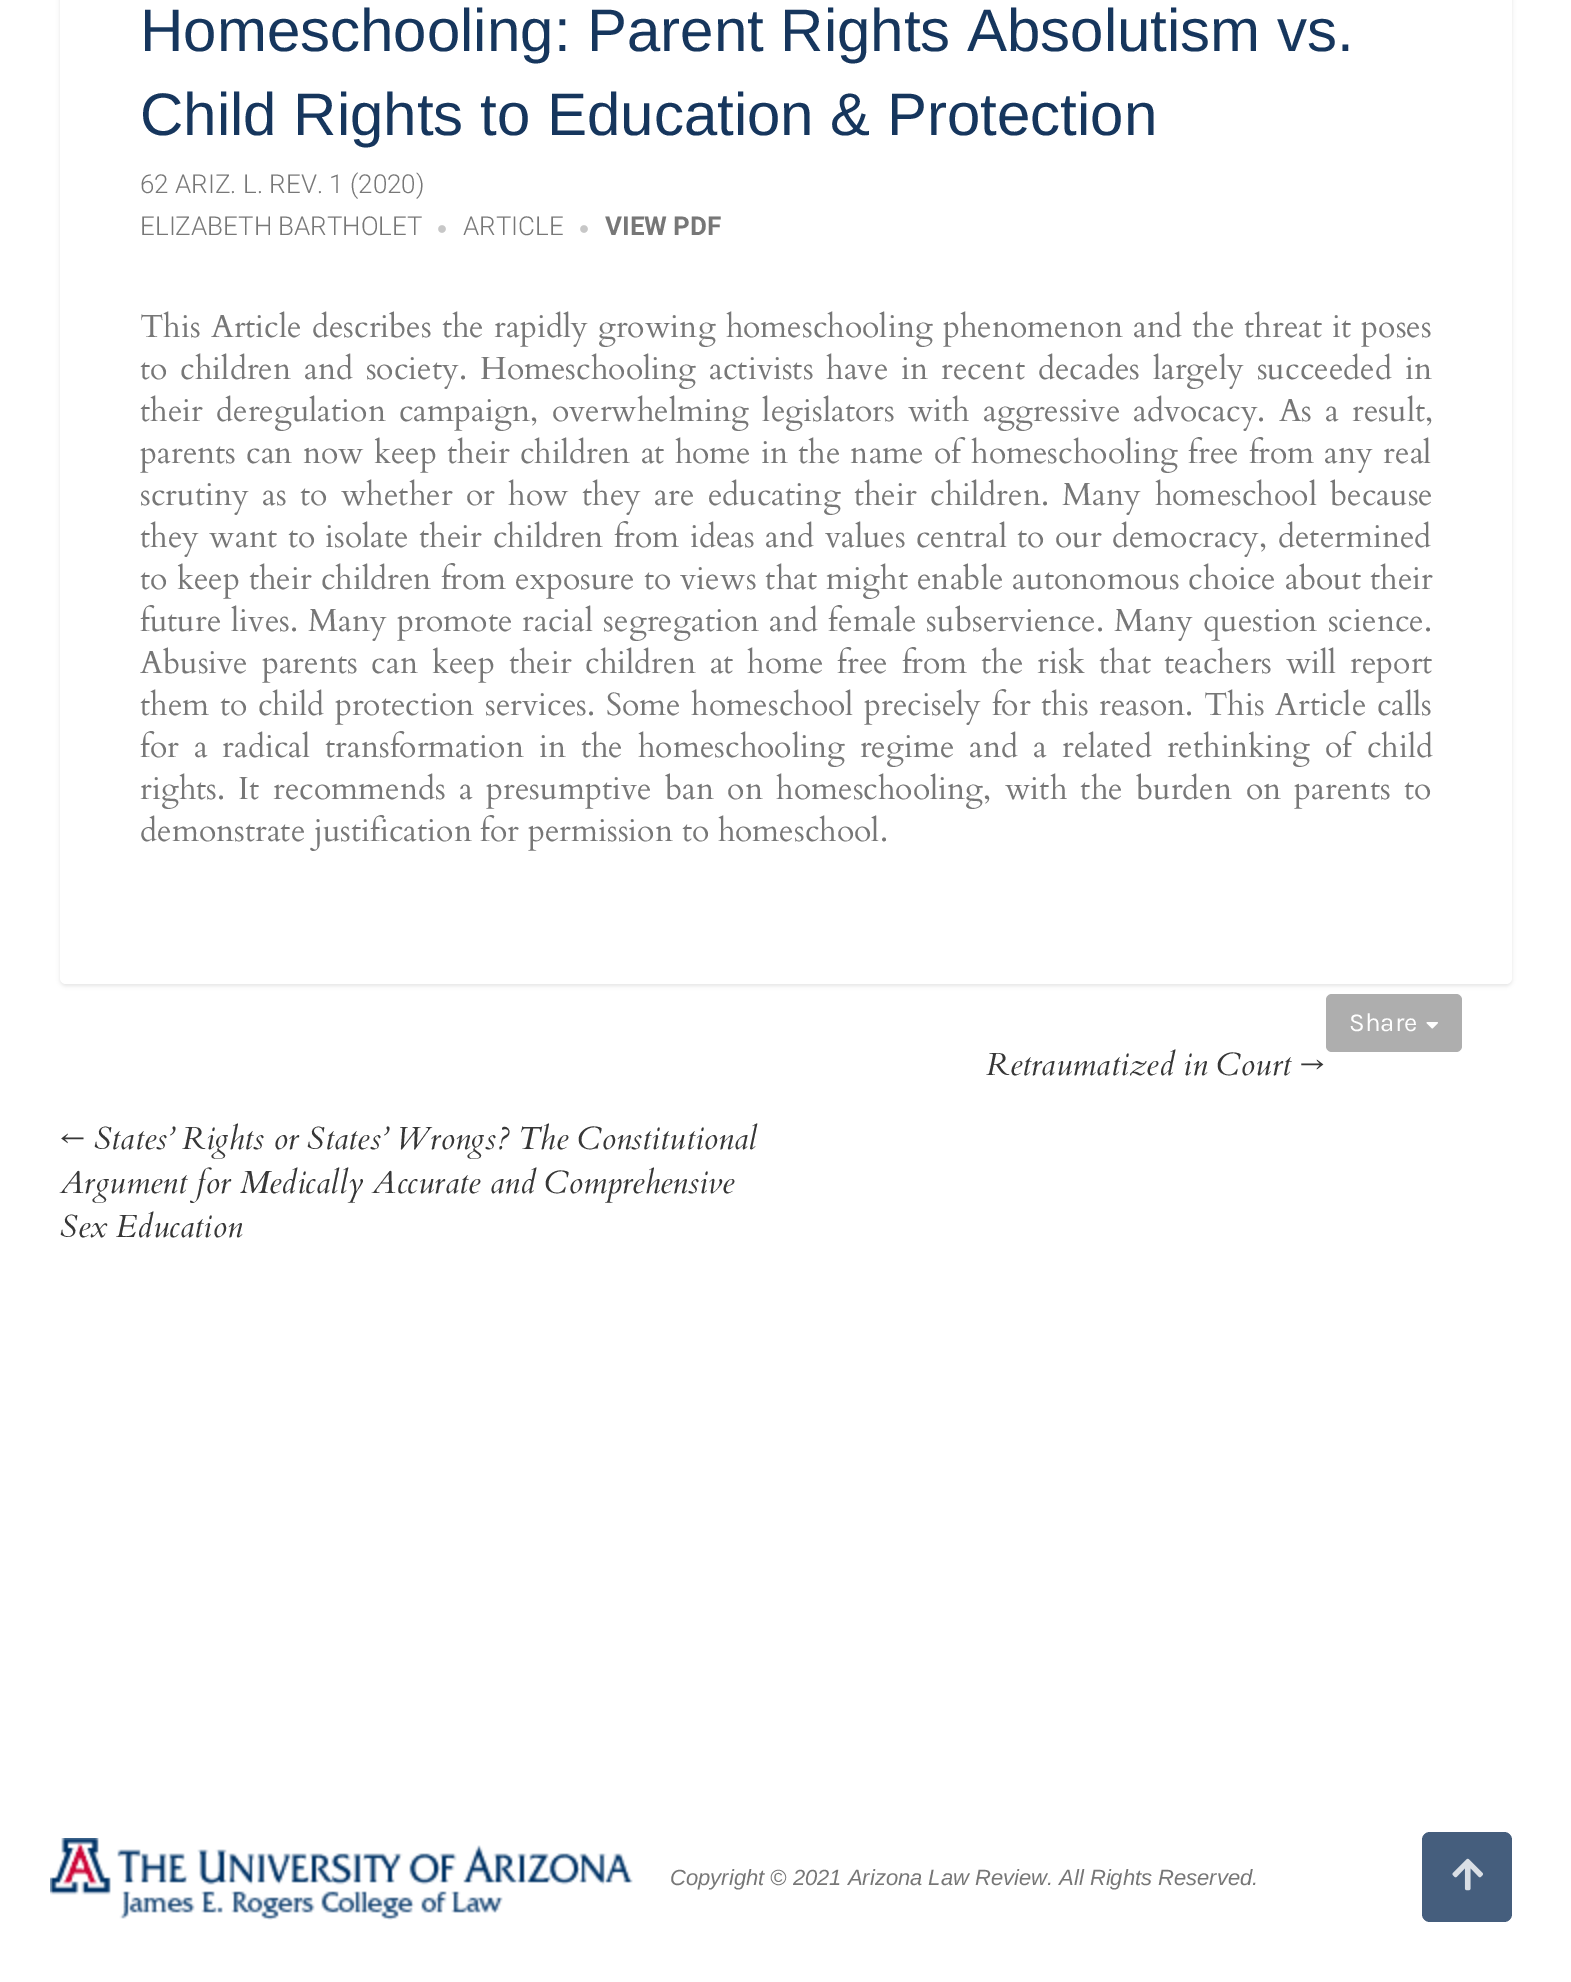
%!PS
<< /PageSize [1571 1982] /PageUsesTransparency true >> setpagedevice
/m/moveto load def
/f/fill load def
/C { dup -16 bitshift 255 div exch dup -8 bitshift 255 and 255 div exch 255 and 255 div setrgbcolor } def
/F { [ exch dup neg 0 0 3 -1 roll 0 0 ] selectfont } def
/T { moveto show } def
/R { rectfill } def
/A { dup .setfillconstantalpha .setstrokeconstantalpha } def
/Q { 5 dict begin { /r /h /w /y /x } { exch def } forall
  x r add y moveto x w add y 2 copy h add r arct x w add y h add x 1 index r arct
  x y h add x y r arct x y 2 copy exch w add exch r arct closepath end } def
/S { 12 dict begin { /a /b /q /h /w /y /x } { exch def } forall gsave /was 0 def
  9 -2 -9 { dup b mul 4 div /e exch def 1 sub .425 mul 2.718 exch exp 1 add a .99 .min exch div /now exch def
    1 1 now sub 1 was sub div sub A /was now def
    w h .min e 2 mul add 0 gt { x e sub y e sub w e 2 mul add h e 2 mul add
      q e add b .6 mul add w h .min 2 div e add .min 0 .max Q fill } if } for grestore end } def
/I { 5 dict begin { /h /w /y /x /name } { exch def } forall
  gsave x y translate w h scale
  w h 8 [w 0 0 h 0 0] name (r) file false 3 colorimage grestore end } def
0 .pushpdf14devicefilter
0 1982 translate 1 -1 scale
4 setmiterlimit
16#FFFFFF C
0 0 1571 1982 R
16#000000 C
60 -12 1452 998 6 2 .1 S
16#FFFFFF C
60 -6 1452 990 6 Q f
/LiberationSans-Regular 60 F
16#16365D C
(Homeschooling: Parent Rights Absolutism vs.) 140 51 T
(Child Rights to Education & Protection) 140 135 T
/Roboto-Light 26 F
16#777777 C
(62 ARIZ. L. REV. 1 \(2020\)) 140 193 T
(ELIZABETH BARTHOLET) 140 235 T
(1.rgb) 438 225 8 8 I
(ARTICLE) 463 235 T
(1.rgb) 580 225 8 8 I
/Roboto-Bold 26 F
(VIEW PDF) 605 235 T
/Cardo-Regular 32 F
140 337 m 1.5 0 32 (This Article describes the rapidly growing homeschooling phenomenon and the threat it poses) widthshow
140 379 m 4.25 0 32 (to children and society. Homeschooling activists have in recent decades largely succeeded in) widthshow
140 421 m 4.5 0 32 (their deregulation campaign, overwhelming legislators with aggressive advocacy. As a result,) widthshow
140 463 m 1.4 0 32 (parents can now keep their children at home in the name of homeschooling free from any real) widthshow
140 505 m 4.75 0 32 (scrutiny as to whether or how they are educating their children. Many homeschool because) widthshow
140 547 m 1.75 0 32 (they want to isolate their children from ideas and values central to our democracy, determined) widthshow
140 589 m .5 0 32 (to keep their children from exposure to views that might enable autonomous choice about their) widthshow
140 631 m 1.5 0 32 (future lives. Many promote racial segregation and female subservience. Many question science.) widthshow
140 673 m 5.1 0 32 (Abusive parents can keep their children at home free from the risk that teachers will report) widthshow
140 715 m 2 0 32 (them to child protection services. Some homeschool precisely for this reason. This Article calls) widthshow
140 757 m 6.25 0 32 (for a radical transformation in the homeschooling regime and a related rethinking of child) widthshow
140 799 m 4.75 0 32 (rights. It recommends a presumptive ban on homeschooling, with the burden on parents to) widthshow
(demonstrate justification for permission to homeschool.) 140 841 T
16#AEAEAE C
1326 994 136 58 6 Q f
/Karla-Regular 26 F
16#FFFFFF C
(Share) 1349 1031 T
(2.rgb) 1426 1022 12 7 I
/Cardo-Italic 32 F
16#373737 C
(Retraumatized in Court →) 986 1075 T
(← States’ Rights or States’ Wrongs? The Constitutional) 60 1149 T
(Argument for Medically Accurate and Comprehensive) 60 1193 T
(Sex Education) 60 1237 T
(3.rgb) 50 1838 583 82 I
/LiberationSans-Italic 22 F
16#777777 C
(Copyright © 2021 Arizona Law Review. All Rights Reserved.) 670 1885 T
16#455E7D C
1422 1832 90 90 8 Q f
(4.rgb) 1452 1858 31 33 I
.poppdf14devicefilter showpage
